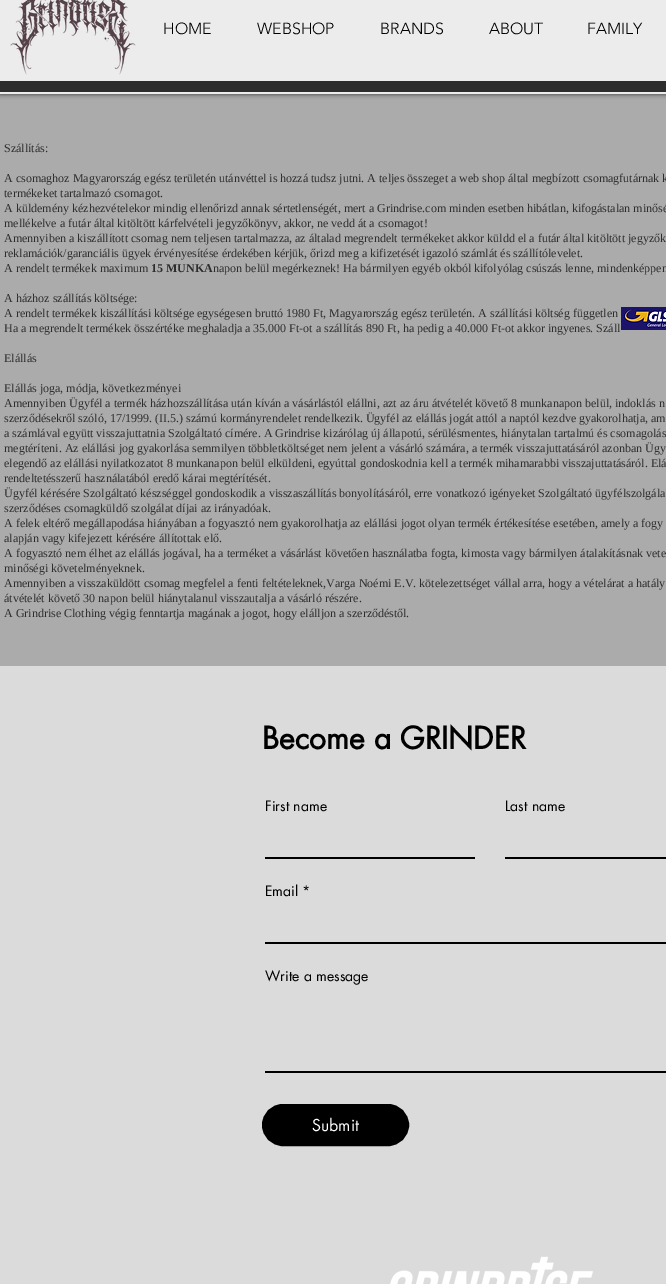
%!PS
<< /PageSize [666 1284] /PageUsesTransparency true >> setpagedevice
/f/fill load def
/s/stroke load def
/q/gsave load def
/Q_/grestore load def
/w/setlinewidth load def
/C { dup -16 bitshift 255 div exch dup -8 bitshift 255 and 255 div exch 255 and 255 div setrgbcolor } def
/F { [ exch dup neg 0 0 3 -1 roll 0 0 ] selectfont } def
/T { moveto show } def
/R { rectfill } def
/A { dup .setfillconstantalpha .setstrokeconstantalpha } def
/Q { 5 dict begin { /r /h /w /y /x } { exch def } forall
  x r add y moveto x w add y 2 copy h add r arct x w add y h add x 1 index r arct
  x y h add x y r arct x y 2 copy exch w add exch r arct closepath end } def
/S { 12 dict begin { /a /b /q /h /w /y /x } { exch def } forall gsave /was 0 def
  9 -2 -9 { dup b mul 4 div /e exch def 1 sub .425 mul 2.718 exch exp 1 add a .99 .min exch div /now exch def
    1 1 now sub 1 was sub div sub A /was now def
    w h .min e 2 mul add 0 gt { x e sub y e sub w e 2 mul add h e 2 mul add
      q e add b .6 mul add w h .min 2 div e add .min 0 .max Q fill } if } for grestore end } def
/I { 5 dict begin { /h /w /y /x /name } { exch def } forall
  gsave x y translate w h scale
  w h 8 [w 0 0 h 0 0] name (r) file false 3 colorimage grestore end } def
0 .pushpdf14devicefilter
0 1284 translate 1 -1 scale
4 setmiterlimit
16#ABABAB C
0 0 666 1284 R
16#000000 C
0 -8 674 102 0 2.5 .7 S
16#ECECEC C
0 0 666 94 R
(1.rgb) 10 0 126 75 I
/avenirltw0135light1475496-Light 16 F
16#000000 C
(HOME) 163 34 T
(WEBSHOP) 257 34 T
(BRANDS) 380 34 T
(ABOUT) 489 34 T
(FAMILY) 587 34 T
16#2D2D2D C
0 81 666 11 R
/LiberationSerif-Regular 12 F
(Szállítás:) 4 152 T
(A csomaghoz Magyarország egész területén utánvéttel is hozzá tudsz jutni. A teljes összeget a web shop által megbízott csomagfutárnak k) 4 182 T
(termékeket tartalmazó csomagot.) 4 197 T
(A küldemény kézhezvételekor mindig ellenőrizd annak sértetlenségét, mert a Grindrise.com minden esetben hibátlan, kifogástalan minősé) 4 212 T
(mellékelve a futár által kitöltött kárfelvételi jegyzőkönyv, akkor, ne vedd át a csomagot!) 4 227 T
(Amennyiben a kiszállított csomag nem teljesen tartalmazza, az általad megrendelt termékeket akkor küldd el a futár által kitöltött jegyzők) 4 242 T
(reklamációk/garanciális ügyek érvényesítése érdekében kérjük, őrizd meg a kifizetését igazoló számlát és szállítólevelet.) 4 257 T
(A rendelt termékek maximum) 4 272 T
/LiberationSerif-Bold 12 F
(15 MUNKA) 151 272 T
/LiberationSerif-Regular 12 F
(napon belül megérkeznek! Ha bármilyen egyéb okból kifolyólag csúszás lenne, mindenképpen) 213 272 T
(A házhoz szállítás költsége:) 4 302 T
(A rendelt termékek kiszállítási költsége egységesen bruttó 1980 Ft, Magyarország egész területén. A szállítási költség független) 4 317 T
(Ha a megrendelt termékek összértéke meghaladja a 35.000 Ft-ot a szállítás 890 Ft, ha pedig a 40.000 Ft-ot akkor ingyenes. Száll) 4 332 T
(Elállás) 4 362 T
(Elállás joga, módja, következményei) 4 392 T
(Amennyiben Ügyfél a termék házhozszállítása után kíván a vásárlástól elállni, azt az áru átvételét követő 8 munkanapon belül, indoklás n) 4 407 T
(szerződésekről szóló, 17/1999. \(II.5.\) számú kormányrendelet rendelkezik. Ügyfél az elállás jogát attól a naptól kezdve gyakorolhatja, am) 4 422 T
(a számlával együtt visszajuttatnia Szolgáltató címére. A Grindrise kizárólag új állapotú, sérülésmentes, hiánytalan tartalmú és csomagolás) 4 437 T
(megtéríteni. Az elállási jog gyakorlása semmilyen többletköltséget nem jelent a vásárló számára, a termék visszajuttatásáról azonban Ügy) 4 452 T
(elegendő az elállási nyilatkozatot 8 munkanapon belül elküldeni, egyúttal gondoskodnia kell a termék mihamarabbi visszajuttatásáról. Elá) 4 467 T
(rendeltetésszerű használatából eredő kárai megtérítését.) 4 482 T
(Ügyfél kérésére Szolgáltató készséggel gondoskodik a visszaszállítás bonyolításáról, erre vonatkozó igényeket Szolgáltató ügyfélszolgála) 4 497 T
(szerződéses csomagküldő szolgálat díjai az irányadóak.) 4 512 T
(A felek eltérő megállapodása hiányában a fogyasztó nem gyakorolhatja az elállási jogot olyan termék értékesítése esetében, amely a fogy) 4 527 T
(alapján vagy kifejezett kérésére állítottak elő.) 4 542 T
(A fogyasztó nem élhet az elállás jogával, ha a terméket a vásárlást követően használatba fogta, kimosta vagy bármilyen átalakításnak vete) 4 557 T
(minőségi követelményeknek.) 4 572 T
(Amennyiben a visszaküldött csomag megfelel a fenti feltételeknek,Varga Noémi E.V. kötelezettséget vállal arra, hogy a vételárat a hatály) 4 587 T
(átvételét követő 30 napon belül hiánytalanul visszautalja a vásárló részére.) 4 602 T
(A Grindrise Clothing végig fenntartja magának a jogot, hogy elálljon a szerződéstől.) 4 617 T
(2.rgb) 621 307 45 23 I
16#DBDBDB C
0 666 666 618 R
/futura-Bold 30 F
16#000000 C
(Become a GRINDER) 262 749 T
/futura-Regular 14 F
(First name) 265 811 T
265 857 210 2 R
(Last name) 505 811 T
505 857 161 2 R
(Email *) 265 896 T
265 942 401 2 R
(Write a message) 265 981 T
265 1071 401 2 R
263 1105 145 40 20 Q q f Q_
2 w
s
/futura-Regular 16 F
16#FFFFFF C
(Submit) 312 1131 T
(3.rgb) 390 1256 203 28 I
.poppdf14devicefilter showpage
